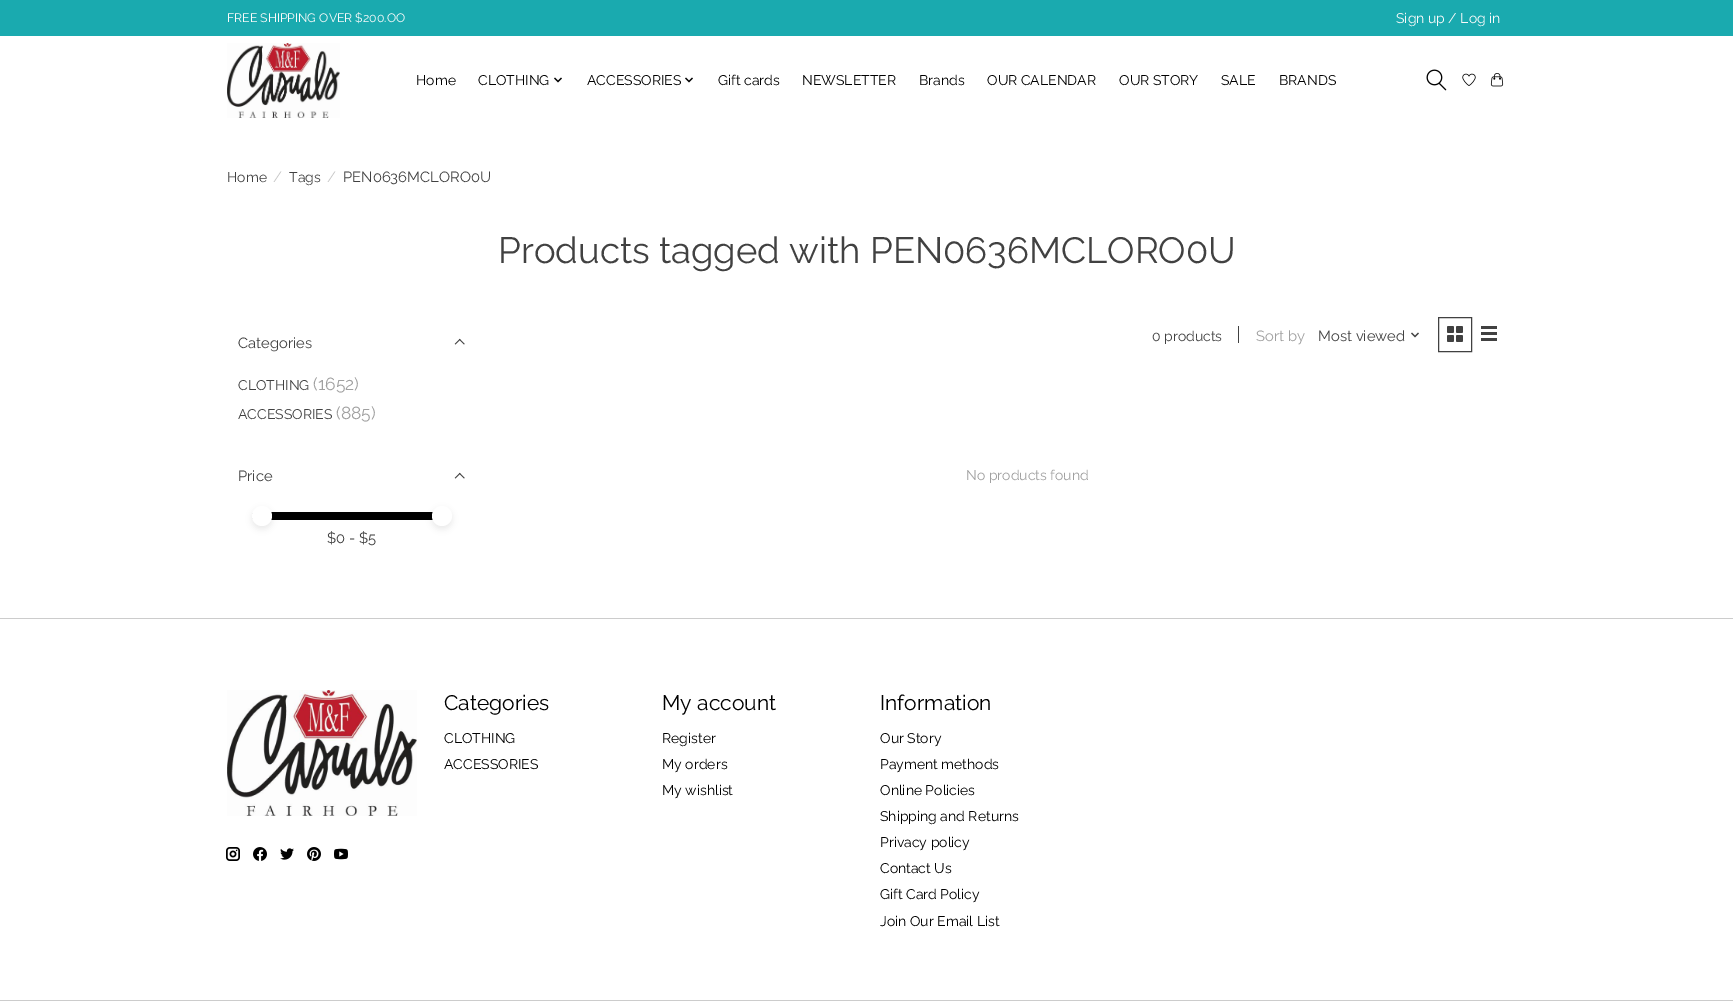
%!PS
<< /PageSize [1733 1006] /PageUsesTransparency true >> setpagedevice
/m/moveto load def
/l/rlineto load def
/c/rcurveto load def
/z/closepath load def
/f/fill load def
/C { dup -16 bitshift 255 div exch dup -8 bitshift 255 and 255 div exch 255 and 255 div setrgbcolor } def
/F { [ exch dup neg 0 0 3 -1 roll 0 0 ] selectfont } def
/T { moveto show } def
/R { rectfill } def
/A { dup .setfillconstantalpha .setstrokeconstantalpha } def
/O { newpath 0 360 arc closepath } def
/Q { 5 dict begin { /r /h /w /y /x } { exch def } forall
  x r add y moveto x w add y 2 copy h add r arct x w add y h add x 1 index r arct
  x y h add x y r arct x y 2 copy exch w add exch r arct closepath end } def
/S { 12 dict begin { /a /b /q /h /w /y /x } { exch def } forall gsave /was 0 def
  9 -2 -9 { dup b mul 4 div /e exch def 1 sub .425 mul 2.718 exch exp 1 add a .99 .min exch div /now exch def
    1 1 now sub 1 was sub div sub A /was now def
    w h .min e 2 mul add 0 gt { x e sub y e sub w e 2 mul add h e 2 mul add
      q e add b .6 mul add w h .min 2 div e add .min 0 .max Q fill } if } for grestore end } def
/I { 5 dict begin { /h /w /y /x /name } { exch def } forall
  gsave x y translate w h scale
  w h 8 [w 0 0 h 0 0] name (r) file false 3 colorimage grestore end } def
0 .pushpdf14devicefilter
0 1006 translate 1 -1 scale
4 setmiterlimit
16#FFFFFF C
0 0 1733 1006 R
16#1AAAAF C
0 0 1733 36 R
/Raleway-Regular 12.25 F
16#FAFAFA C
(FREE SHIPPING OVER $200.OO) 227 22 T
/Raleway-Regular 14 F
(Sign up / Log in) 1396 23 T
(1.rgb) 227 43 113 75 I
16#000000 C
(Home) 416 85 T
(CLOTHING) 478 85 T
(2.rgb) 554 77 8 6 I
(ACCESSORIES) 587 85 T
(2.rgb) 685 77 8 6 I
(Gift cards) 718 85 T
(NEWSLETTER) 802 85 T
(Brands) 919 85 T
(OUR CALENDAR) 987 85 T
(OUR STORY) 1119 85 T
(SALE) 1221 85 T
(BRANDS) 1279 85 T
(3.rgb) 1426 69 21 22 I
(4.rgb) 1462 73 14 13 I
(5.rgb) 1490 73 14 14 I
16#414141 C
(Home) 227 182 T
/Raleway-Regular 14.75 F
16#C6C6C6 C
(/) 273 182 T
/Raleway-Regular 14 F
16#414141 C
(Tags) 289 182 T
/Raleway-Regular 14.75 F
16#C6C6C6 C
(/) 327 182 T
16#414141 C
(PEN0636MCLORO0U) 343 182 T
/Raleway-Regular 36.5 F
(Products tagged with PEN0636MCLORO0U) 498 263 T
/Raleway-Regular 14.75 F
(Categories) 238 348 T
(6.rgb) 454 338 11 7 I
/Raleway-Regular 14 F
(CLOTHING) 238 390 T
/Raleway-Regular 17.5 F
16#A0A0A0 C
(\(1652\)) 313 390 T
/Raleway-Regular 14 F
16#414141 C
(ACCESSORIES) 238 419 T
/Raleway-Regular 17.5 F
16#A0A0A0 C
(\(885\)) 336 419 T
/Raleway-Regular 14.75 F
16#414141 C
(Price) 238 481 T
(6.rgb) 454 472 11 7 I
16#000000 C
256 512 m 186 0 l 0 8 l -186 0 l -2 0 -4 -2 -4 -4 c 0 -2 2 -4 4 -4 c z f
252 509 20 20 10 3 .08 S
16#FFFFFF C
262 516 10 O f
16#414141 C
($0 - $5) 327 543 T
16#000000 C
432 509 20 20 10 3 .08 S
16#FFFFFF C
442 516 10 O f
/Raleway-Regular 14 F
16#414141 C
(0 products) 1152 341 T
1238 326 1 17 R
/Raleway-Regular 14.75 F
16#A0A0A0 C
(Sort by) 1256 341 T
16#414141 C
(Most viewed) 1318 341 T
(7.rgb) 1411 332 8 6 I
1438.5 317.5 33 34 rectstroke
(8.rgb) 1447 326 16 16 I
1481 326 16 3 R
1481 332 16 3 R
1481 338 16 3 R
/Raleway-Regular 14 F
16#A0A0A0 C
(No products found) 966 480 T
16#CCCCCC C
0 618 1733 1 R
(9.rgb) 227 690 190 126 I
(10.rgb) 226 847 14 14 I
(11.rgb) 253 847 14 14 I
(12.rgb) 280 848 14 12 I
(13.rgb) 307 847 14 14 I
(14.rgb) 334 848 14 12 I
/Raleway-Regular 21 F
16#000000 C
(Categories) 444 710 T
/Raleway-Regular 14 F
(CLOTHING) 444 743 T
(ACCESSORIES) 444 769 T
/Raleway-Regular 21 F
(My account) 662 710 T
/Raleway-Regular 14 F
(Register) 662 743 T
(My orders) 662 769 T
(My wishlist) 662 795 T
/Raleway-Regular 21 F
(Information) 880 710 T
/Raleway-Regular 14 F
(Our Story) 880 743 T
(Payment methods) 880 769 T
(Online Policies) 880 795 T
(Shipping and Returns) 880 821 T
(Privacy policy) 880 847 T
(Contact Us) 880 873 T
(Gift Card Policy) 880 899 T
(Join Our Email List) 880 926 T
16#CCCCCC C
0 1000 1733 1 R
.poppdf14devicefilter showpage
